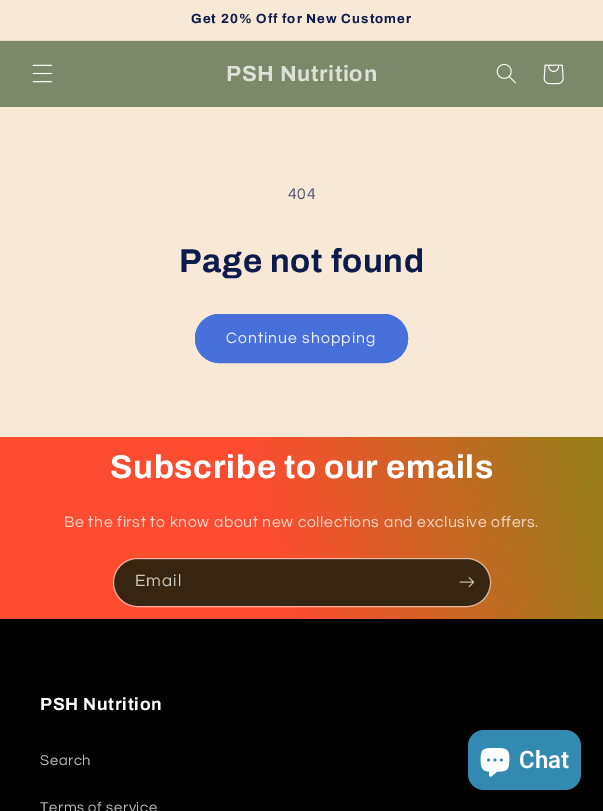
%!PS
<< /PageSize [603 811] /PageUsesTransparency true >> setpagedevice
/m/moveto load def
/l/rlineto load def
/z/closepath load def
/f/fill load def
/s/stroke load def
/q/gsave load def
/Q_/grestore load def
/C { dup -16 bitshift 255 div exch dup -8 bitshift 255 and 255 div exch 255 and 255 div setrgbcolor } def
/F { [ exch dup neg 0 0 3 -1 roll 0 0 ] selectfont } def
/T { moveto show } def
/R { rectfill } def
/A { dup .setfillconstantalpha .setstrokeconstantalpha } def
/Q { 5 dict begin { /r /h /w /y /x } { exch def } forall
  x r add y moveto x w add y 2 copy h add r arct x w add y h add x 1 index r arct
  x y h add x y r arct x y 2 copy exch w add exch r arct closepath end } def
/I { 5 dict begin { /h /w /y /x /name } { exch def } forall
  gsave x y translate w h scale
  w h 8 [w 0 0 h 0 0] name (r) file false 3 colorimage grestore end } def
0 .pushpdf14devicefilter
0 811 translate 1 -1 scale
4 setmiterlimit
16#F8E9D6 C
0 0 603 811 R
16#E5D9CB C
0 40 603 1 R
/Archivo-Bold 13.25 F
16#0E1B4D C
191 23 m 1.05 0 (Get 20% Off for New Customer) ashow
16#7B8869 C
0 41 603 66 R
(1.rgb) 32 64 20 19 I
/Archivo-Bold 22 F
16#DEE1DA C
226 81 m .7 0 (PSH Nutrition) ashow
(2.rgb) 496 63 20 21 I
(3.rgb) 543 64 21 21 I
/Questrial-Regular 15.75 F
16#494F6F C
288 199 m .63 0 (404) ashow
/Archivo-Bold 33 F
16#0E1B4D C
179 272 m .7 0 (Page not found) ashow
16#4770DB C
195 314 213 49 24.5 Q f
195.5 314.5 212 48 24 Q s
/Questrial-Regular 15.75 F
16#EFF0F5 C
226 343 m 1.05 0 (Continue shopping) ashow
q 0 437 m 603 0 l 0 182 l -603 0 l z clip newpath
<< /ShadingType 2 /ColorSpace /DeviceRGB /Coords [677 319 -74 492] /Extend [true true] /Function << /FunctionType 3 /Domain [0 1] /Functions [<< /FunctionType 2 /Domain [0 1] /C0 [.592 .498 .098] /C1 [.592 .498 .098] /N 1 >> << /FunctionType 2 /Domain [0 1] /C0 [.592 .498 .098] /C1 [.996 .298 .188] /N 1 >> << /FunctionType 2 /Domain [0 1] /C0 [.996 .298 .188] /C1 [.996 .298 .188] /N 1 >>] /Bounds [.14 .58] /Encode [0 1 0 1 0 1] >> >> shfill Q_
/Archivo-Bold 33 F
16#FFFFFF C
110 478 m .7 0 (Subscribe to our emails) ashow
/Questrial-Regular 15.75 F
16#F9D5CA C
64 527 m .63 0 (Be the first to know about new collections and exclusive offers.) ashow
16#37250F C
114 559 376 47 23.5 Q f
0.55 A
16#FFFFFF C
113.5 558.5 377 48 24 Q s
/Questrial-Regular 17 F
1 A
16#CDC9C3 C
135 586 m 1.05 0 (Email) ashow
(4.rgb) 459 577 15 11 I
16#000000 C
0 619 603 192 R
/Archivo-Bold 17.5 F
16#FFFFFF C
40 710 m .7 0 (PSH Nutrition) ashow
/Questrial-Regular 14.75 F
16#BFBFBF C
40 765 m .63 0 (Search) ashow
40 812 m .63 0 (Terms of service) ashow
16#338AB0 C
468 730 113 60 16 Q f
(5.rgb) 480 748 30 29 I
/Roboto-SemiBold 24 F
16#FFFFFF C
(Chat) 519 768 T
.poppdf14devicefilter showpage
